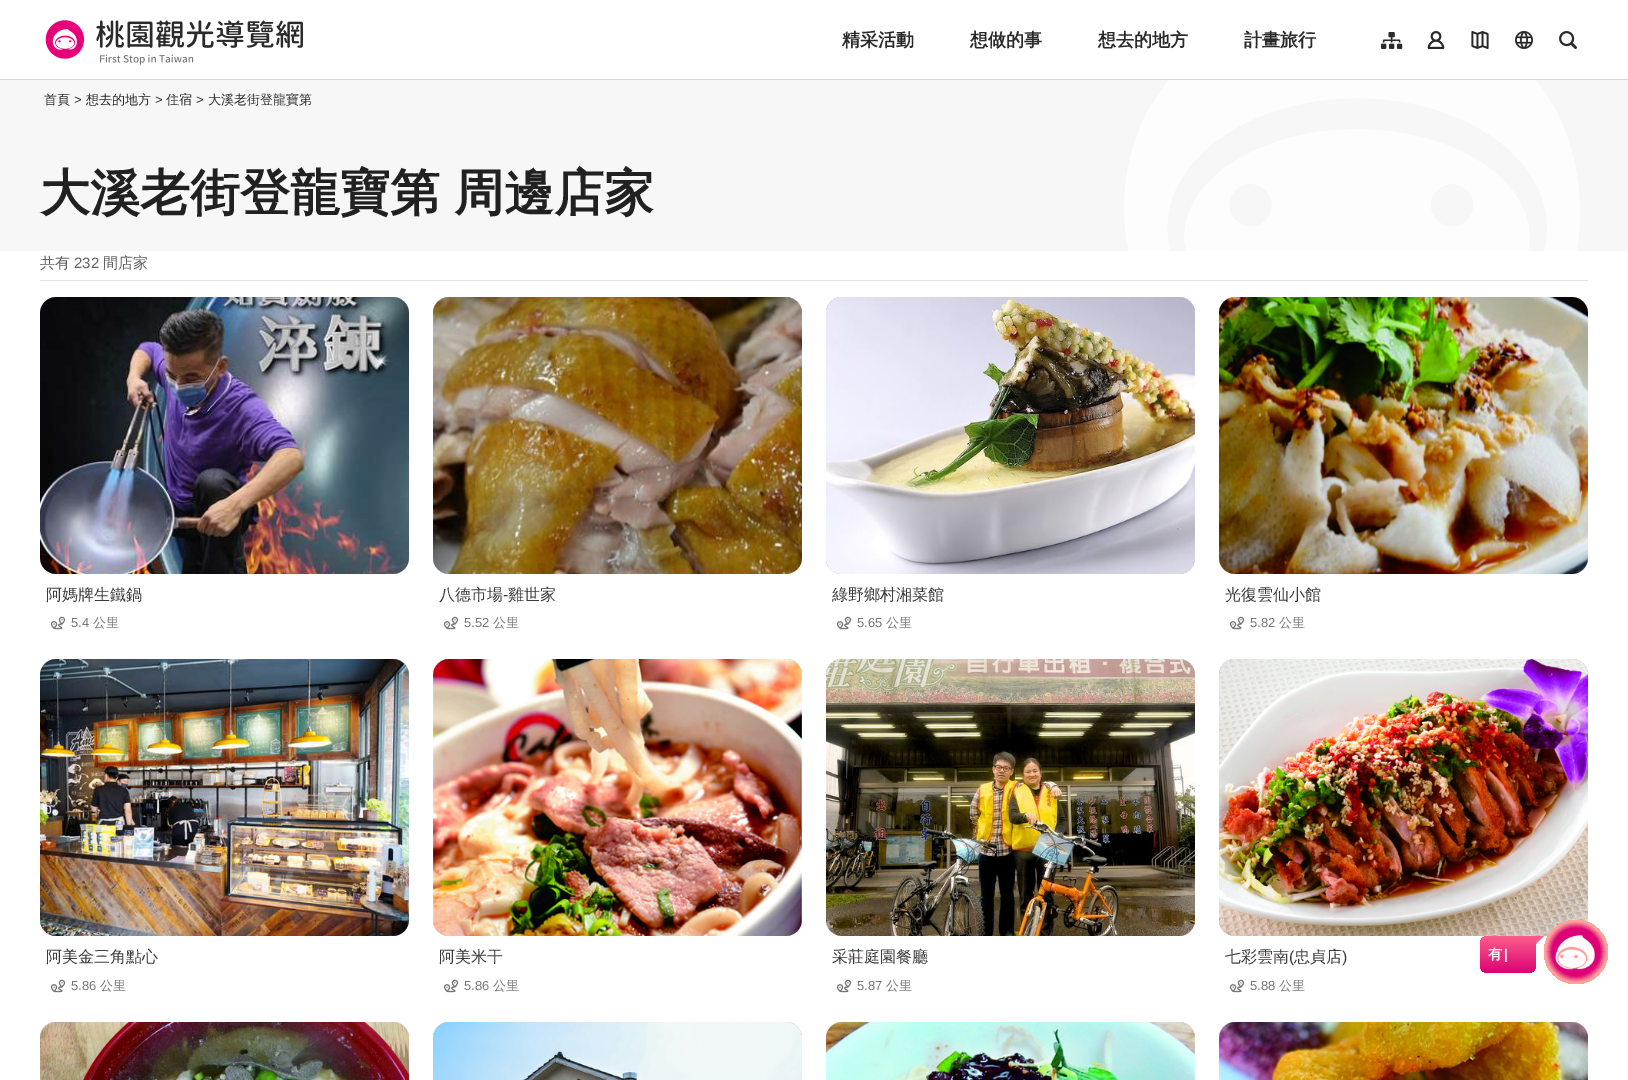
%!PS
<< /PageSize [1628 1080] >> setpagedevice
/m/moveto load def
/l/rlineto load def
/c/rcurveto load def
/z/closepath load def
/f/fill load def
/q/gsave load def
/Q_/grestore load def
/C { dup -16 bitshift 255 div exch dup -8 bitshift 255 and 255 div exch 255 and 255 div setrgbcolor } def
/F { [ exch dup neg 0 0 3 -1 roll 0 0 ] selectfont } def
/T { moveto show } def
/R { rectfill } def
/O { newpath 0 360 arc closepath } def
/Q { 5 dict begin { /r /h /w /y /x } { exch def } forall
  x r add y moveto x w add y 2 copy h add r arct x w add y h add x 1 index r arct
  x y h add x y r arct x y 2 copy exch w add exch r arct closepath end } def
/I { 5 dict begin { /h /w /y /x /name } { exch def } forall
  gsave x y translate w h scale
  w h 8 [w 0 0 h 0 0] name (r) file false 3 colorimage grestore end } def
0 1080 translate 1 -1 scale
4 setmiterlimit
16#FFFFFF C
0 0 1628 1080 R
(1.rgb) 45 20 258 45 I
/WenQuanYiZenHei-Bold 18 F
16#2A2A2A C
(精采活動) 842 46 T
(想做的事) 970 46 T
(想去的地方) 1098 46 T
(計畫旅行) 1244 46 T
(2.rgb) 1381 32 22 17 I
(3.rgb) 1427 31 18 18 I
(4.rgb) 1471 31 18 18 I
(5.rgb) 1515 31 18 18 I
(6.rgb) 1559 31 18 18 I
16#D7D7D7 C
0 79 1628 1 R
16#F7F7F7 C
0 80 1628 171 R
/WenQuanYiZenHei-Medium 13 F
16#2A2A2A C
(首頁) 44 104 T
/LiberationSans-Regular 13 F
(>) 74 104 T
/WenQuanYiZenHei-Medium 13 F
(想去的地方) 86 104 T
/LiberationSans-Regular 13 F
(>) 155 104 T
/WenQuanYiZenHei-Medium 13 F
(住宿) 166 104 T
/LiberationSans-Regular 13 F
(>) 196 104 T
/WenQuanYiZenHei-Medium 13 F
(大溪老街登龍寶第) 208 104 T
(7.rgb) 1124 80 456 171 I
/WenQuanYiZenHei-Bold 50 F
16#212121 C
40 210 m -1 0 32 (大溪老街登龍寶第 周邊店家) widthshow
16#E3E3E3 C
40 280 1548 1 R
/WenQuanYiZenHei-Medium 15 F
16#626262 C
(共有) 40 268 T
/LiberationSans-Regular 15 F
(232) 74 268 T
/WenQuanYiZenHei-Medium 15 F
(間店家) 103 268 T
16#E6E6E6 C
40 297 369 277 16 Q f
(8.rgb) 40 297 369 277 I
/WenQuanYiZenHei-Medium 16 F
16#3E3A39 C
(阿媽牌生鐵鍋) 46 600 T
(9.rgb) 50 616 16 14 I
/LiberationSans-Regular 13 F
16#767676 C
(5.4) 71 627 T
/WenQuanYiZenHei-Medium 13 F
(公里) 93 627 T
16#E6E6E6 C
433 297 369 277 16 Q f
(10.rgb) 433 297 369 277 I
/WenQuanYiZenHei-Medium 16 F
16#3E3A39 C
(八德市場) 439 600 T
/LiberationSans-Regular 16 F
(-) 503 600 T
/WenQuanYiZenHei-Medium 16 F
(雞世家) 508 600 T
(9.rgb) 443 616 16 14 I
/LiberationSans-Regular 13 F
16#767676 C
(5.52) 464 627 T
/WenQuanYiZenHei-Medium 13 F
(公里) 493 627 T
16#E6E6E6 C
826 297 369 277 16 Q f
(11.rgb) 826 297 369 277 I
/WenQuanYiZenHei-Medium 16 F
16#3E3A39 C
(綠野鄉村湘菜館) 832 600 T
(9.rgb) 836 616 16 14 I
/LiberationSans-Regular 13 F
16#767676 C
(5.65) 857 627 T
/WenQuanYiZenHei-Medium 13 F
(公里) 886 627 T
16#E6E6E6 C
1219 297 369 277 16 Q f
(12.rgb) 1219 297 369 277 I
/WenQuanYiZenHei-Medium 16 F
16#3E3A39 C
(光復雲仙小館) 1225 600 T
(9.rgb) 1229 616 16 14 I
/LiberationSans-Regular 13 F
16#767676 C
(5.82) 1250 627 T
/WenQuanYiZenHei-Medium 13 F
(公里) 1279 627 T
16#E6E6E6 C
40 659 369 277 16 Q f
(13.rgb) 40 659 369 277 I
/WenQuanYiZenHei-Medium 16 F
16#3E3A39 C
(阿美金三角點心) 46 962 T
(9.rgb) 50 979 16 14 I
/LiberationSans-Regular 13 F
16#767676 C
(5.86) 71 990 T
/WenQuanYiZenHei-Medium 13 F
(公里) 100 990 T
16#E6E6E6 C
433 659 369 277 16 Q f
(14.rgb) 433 659 369 277 I
/WenQuanYiZenHei-Medium 16 F
16#3E3A39 C
(阿美米干) 439 962 T
(9.rgb) 443 979 16 14 I
/LiberationSans-Regular 13 F
16#767676 C
(5.86) 464 990 T
/WenQuanYiZenHei-Medium 13 F
(公里) 493 990 T
16#E6E6E6 C
826 659 369 277 16 Q f
(15.rgb) 826 659 369 277 I
/WenQuanYiZenHei-Medium 16 F
16#3E3A39 C
(采莊庭園餐廳) 832 962 T
(9.rgb) 836 979 16 14 I
/LiberationSans-Regular 13 F
16#767676 C
(5.87) 857 990 T
/WenQuanYiZenHei-Medium 13 F
(公里) 886 990 T
16#E6E6E6 C
1219 659 369 277 16 Q f
(16.rgb) 1219 659 369 277 I
/WenQuanYiZenHei-Medium 16 F
16#3E3A39 C
(七彩雲南) 1225 962 T
/LiberationSans-Regular 16 F
(\() 1289 962 T
/WenQuanYiZenHei-Medium 16 F
(忠貞店) 1294 962 T
/LiberationSans-Regular 16 F
(\)) 1342 962 T
(9.rgb) 1229 979 16 14 I
/LiberationSans-Regular 13 F
16#767676 C
(5.88) 1250 990 T
/WenQuanYiZenHei-Medium 13 F
(公里) 1279 990 T
16#E6E6E6 C
40 1022 369 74 16 Q f
(17.rgb) 40 1022 369 58 I
433 1022 369 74 16 Q f
(18.rgb) 433 1022 369 58 I
826 1022 369 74 16 Q f
(19.rgb) 826 1022 369 58 I
1219 1022 369 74 16 Q f
(20.rgb) 1219 1022 369 58 I
16#FC5E8A C
1544 936 m -8 0 l 0 8 l z f
q 1488 936 m 48 0 l 0 29 l 0 4.5 -3.5 8 -8 8 c -40 0 l -4.5 0 -8 -3.5 -8 -8 c 0 -21 l 0 -4.5 3.5 -8 8 -8 c z clip newpath
<< /ShadingType 2 /ColorSpace /DeviceRGB /Coords [1508 936 1508 973] /Extend [true true] /Function << /FunctionType 2 /Domain [0 1] /C0 [.988 .369 .541] /C1 [.863 .004 .459] /N 1 >> >> shfill Q_
/WenQuanYiZenHei-Bold 14 F
16#FFFFFF C
(有) 1488 959 T
/LiberationSans-Bold 14 F
(|) 1504 959 T
q 1576 952 32 O clip newpath 1576 952 translate 32 32 scale
<< /ShadingType 3 /ColorSpace /DeviceRGB /Coords [0 0 0 0 0 1] /Extend [true true] /Function << /FunctionType 3 /Domain [0 1] /Functions [<< /FunctionType 2 /Domain [0 1] /C0 [.863 .004 .459] /C1 [.863 .004 .459] /N 1 >> << /FunctionType 2 /Domain [0 1] /C0 [.863 .004 .459] /C1 [.996 .635 .604] /N 1 >> << /FunctionType 2 /Domain [0 1] /C0 [.996 .635 .604] /C1 [.996 .635 .604] /N 1 >>] /Bounds [.75 .95] /Encode [0 1 0 1 0 1] >> >> shfill Q_
(21.rgb) 1555 935 40 35 I
showpage
